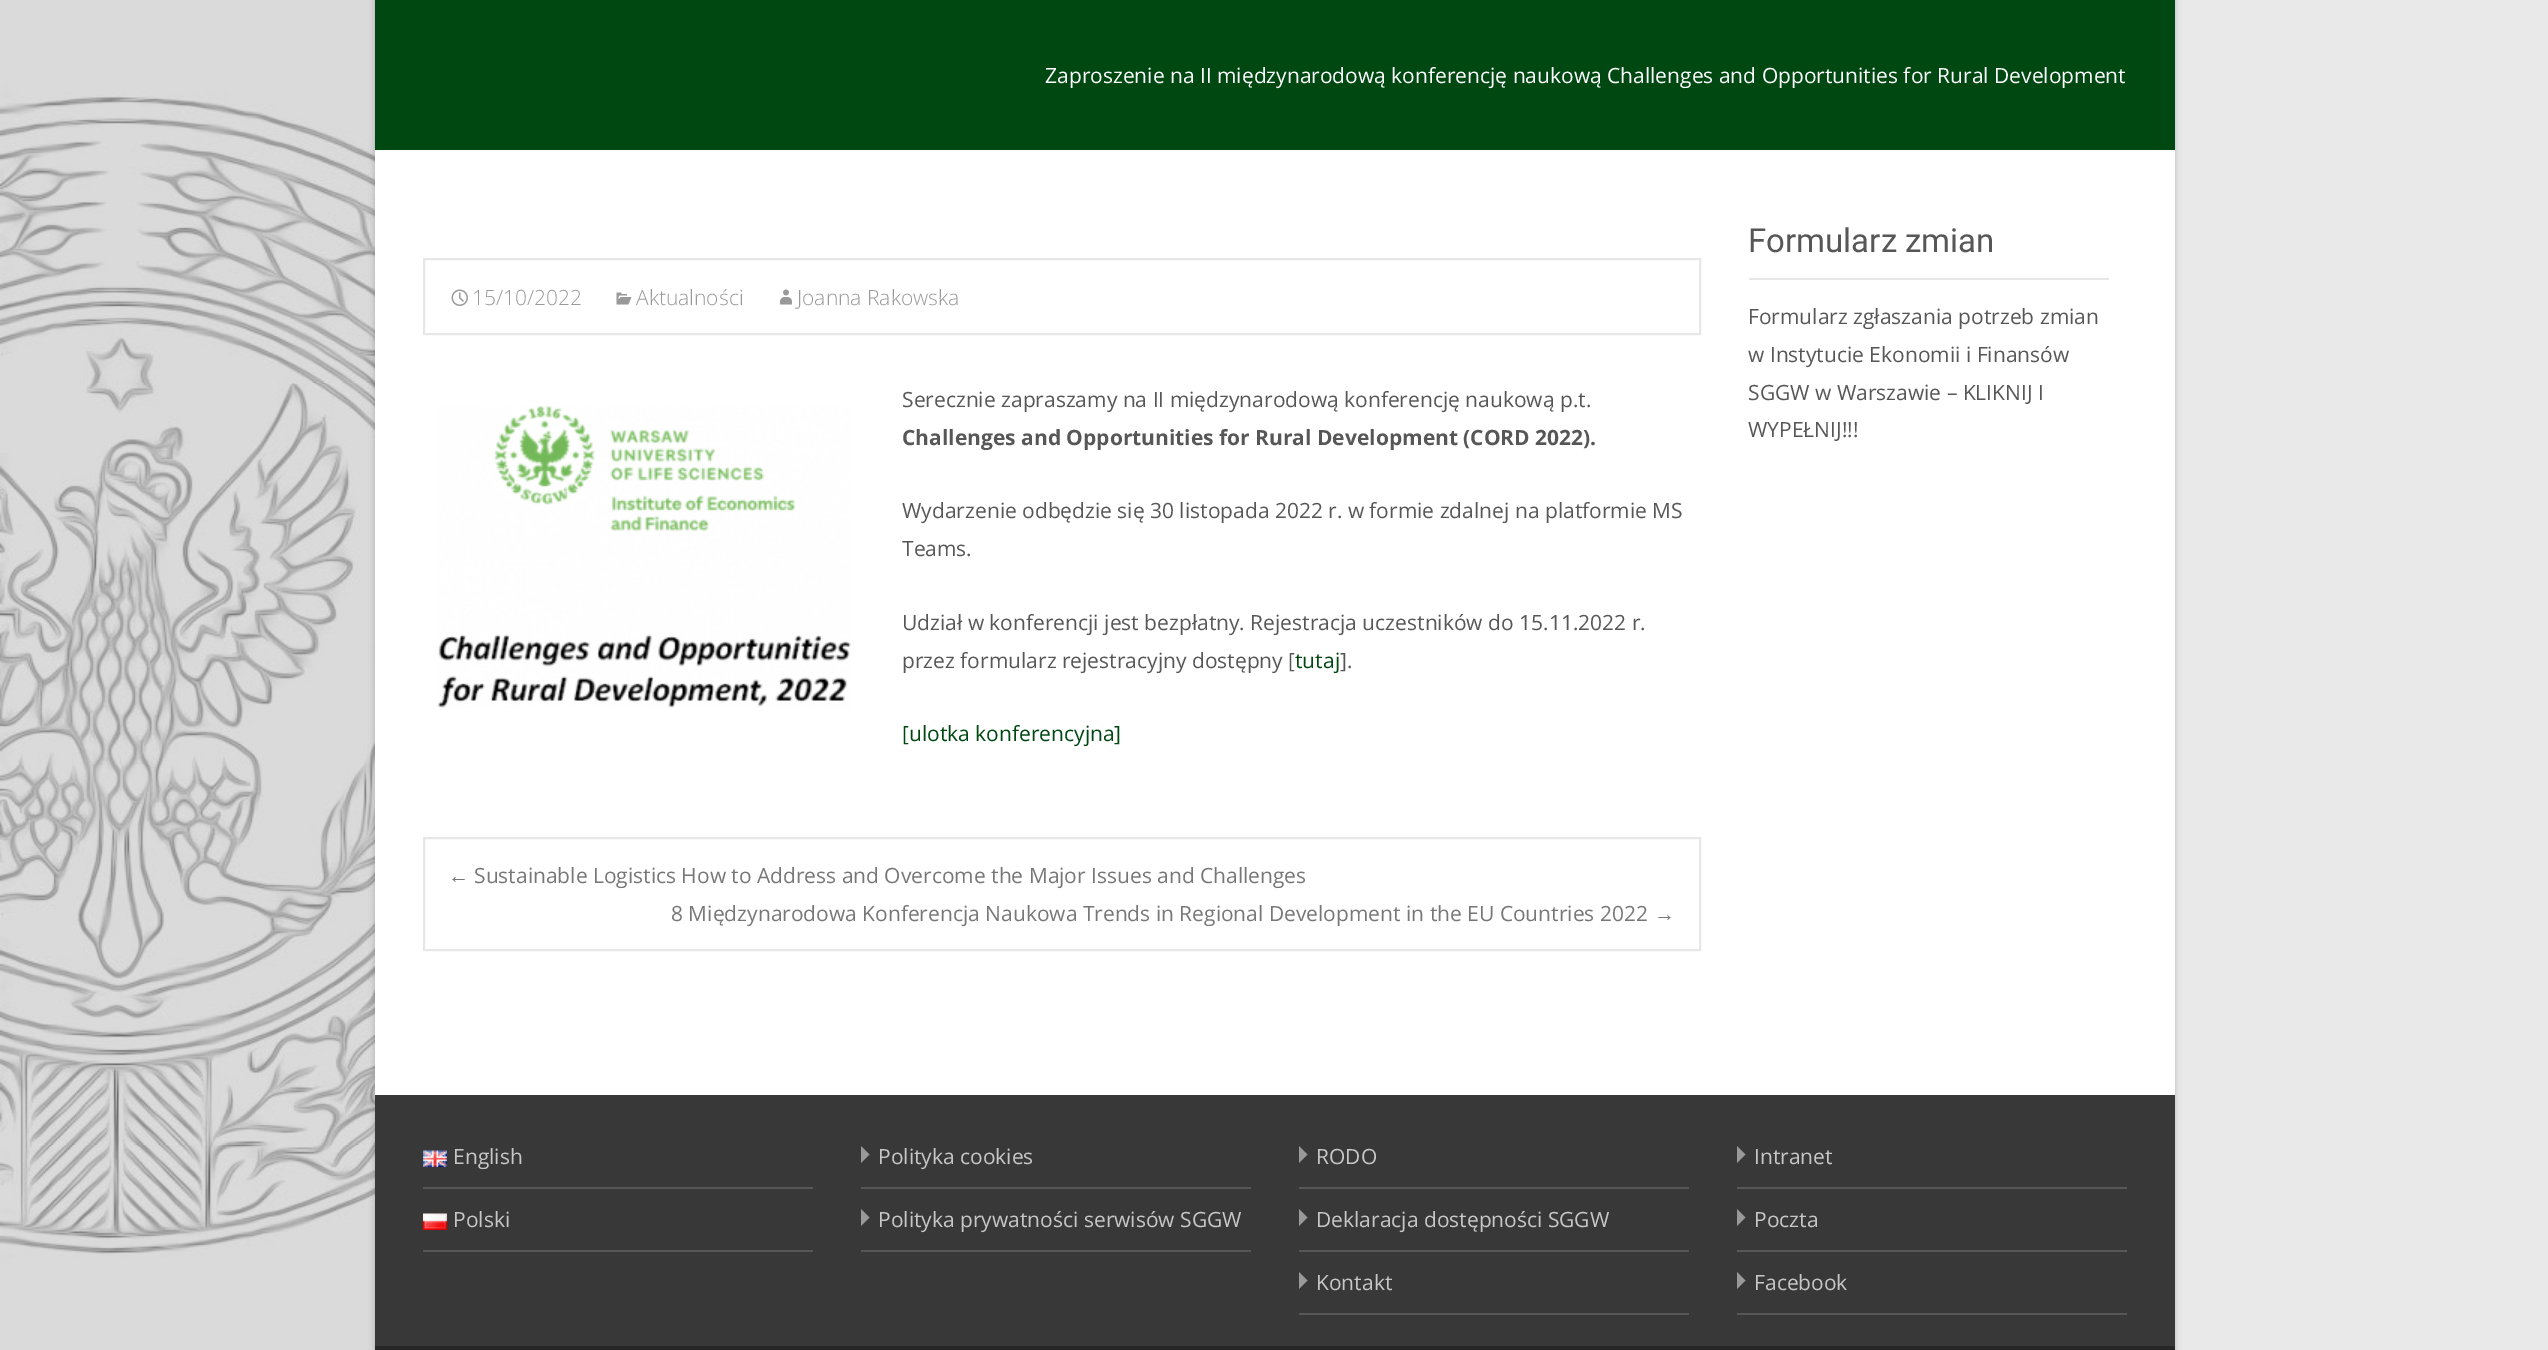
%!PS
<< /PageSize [2548 1350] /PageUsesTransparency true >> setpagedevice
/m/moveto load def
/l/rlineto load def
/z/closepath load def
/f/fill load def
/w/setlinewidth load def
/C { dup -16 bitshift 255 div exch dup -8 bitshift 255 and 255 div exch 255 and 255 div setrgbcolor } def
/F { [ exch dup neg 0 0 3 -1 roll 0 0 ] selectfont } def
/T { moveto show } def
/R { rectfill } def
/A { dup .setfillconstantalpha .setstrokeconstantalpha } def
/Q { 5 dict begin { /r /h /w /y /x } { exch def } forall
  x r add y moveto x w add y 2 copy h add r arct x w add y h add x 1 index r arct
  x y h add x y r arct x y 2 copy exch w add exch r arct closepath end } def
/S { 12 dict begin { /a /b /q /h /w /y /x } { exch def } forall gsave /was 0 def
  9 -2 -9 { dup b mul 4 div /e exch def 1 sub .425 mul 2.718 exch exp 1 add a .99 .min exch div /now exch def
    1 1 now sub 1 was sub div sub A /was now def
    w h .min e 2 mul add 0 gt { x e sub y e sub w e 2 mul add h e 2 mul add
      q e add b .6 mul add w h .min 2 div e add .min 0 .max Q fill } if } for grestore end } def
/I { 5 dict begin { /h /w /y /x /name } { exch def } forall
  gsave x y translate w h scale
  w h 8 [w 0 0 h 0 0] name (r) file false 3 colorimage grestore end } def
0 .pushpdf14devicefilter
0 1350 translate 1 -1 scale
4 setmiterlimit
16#E9E9E9 C
0 0 2548 1350 R
(1.rgb) 0 0 375 1350 I
16#000000 C
375 -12 1800 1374 3 3 .1 S
375 -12 1800 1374 3 3 .1 S
16#FFFFFF C
375 150 1800 945 R
16#004812 C
375 0 1800 150 R
/OpenSans-Regular 21 F
16#FFFFFF C
(Zaproszenie na II międzynarodową konferencję naukową Challenges and Opportunities for Rural Development) 1045 83 T
16#E7E7E7 C
2 w
424 259 1276 75 rectstroke
(2.rgb) 451 289 17 17 I
/OpenSans-Light 21 F
16#999999 C
(15/10/2022) 472 305 T
(3.rgb) 616 292 16 13 I
(Aktualności) 636 305 T
(4.rgb) 780 289 12 16 I
(Joanna Rakowska) 797 305 T
/OpenSans-Regular 21 F
16#575757 C
(Serecznie zapraszamy na II międzynarodową konferencję naukową p.t.) 902 407 T
(5.rgb) 437 406 414 302 I
/OpenSans-Bold 21 F
(Challenges and Opportunities for Rural Development \(CORD 2022\).) 902 445 T
/OpenSans-Regular 21 F
(Wydarzenie odbędzie się 30 listopada 2022 r. w formie zdalnej na platformie MS) 902 518 T
(Teams.) 902 556 T
(Udział w konferencji jest bezpłatny. Rejestracja uczestników do 15.11.2022 r.) 902 630 T
(przez formularz rejestracyjny dostępny [) 902 668 T
16#004812 C
(tutaj) 1295 668 T
16#575757 C
(].) 1340 668 T
16#004812 C
([ulotka konferencyjna]) 902 741 T
16#E7E7E7 C
424 838 1276 112 rectstroke
/LiberationSans-Regular 21 F
16#777777 C
(←) 448 883 T
/OpenSans-Regular 21 F
(Sustainable Logistics How to Address and Overcome the Major Issues and Challenges) 474 883 T
(8 Międzynarodowa Konferencja Naukowa Trends in Regional Development in the EU Countries 2022) 671 921 T
/LiberationSans-Regular 21 F
(→) 1654 921 T
16#E7E7E7 C
1749 278 360 2 R
/Roboto-Regular 33 F
16#575757 C
(Formularz zmian) 1748 252 T
/OpenSans-Regular 21 F
(Formularz zgłaszania potrzeb zmian) 1748 324 T
(w Instytucie Ekonomii i Finansów) 1748 362 T
(SGGW w Warszawie – KLIKNIJ I) 1748 400 T
(WYPEŁNIJ!!!) 1748 437 T
16#272727 C
375 1346 1800 4 R
16#383838 C
375 1095 1800 251 R
16#575757 C
423 1187 390 2 R
(6.rgb) 423 1150 24 17 I
16#C7C7C7 C
(English) 453 1164 T
16#575757 C
423 1250 390 2 R
(7.rgb) 423 1213 24 17 I
16#C7C7C7 C
(Polski) 453 1227 T
16#575757 C
861 1187 390 2 R
16#999999 C
861 1163 m 8.5 -8.5 l -8.5 -8.5 l z f
16#C7C7C7 C
(Polityka cookies) 878 1164 T
16#575757 C
861 1250 390 2 R
16#999999 C
861 1226 m 8.5 -8.5 l -8.5 -8.5 l z f
16#C7C7C7 C
(Polityka prywatności serwisów SGGW) 878 1227 T
16#575757 C
1299 1187 390 2 R
16#999999 C
1299 1163 m 8.5 -8.5 l -8.5 -8.5 l z f
16#C7C7C7 C
(RODO) 1316 1164 T
16#575757 C
1299 1250 390 2 R
16#999999 C
1299 1226 m 8.5 -8.5 l -8.5 -8.5 l z f
16#C7C7C7 C
(Deklaracja dostępności SGGW) 1316 1227 T
16#575757 C
1299 1313 390 2 R
16#999999 C
1299 1289 m 8.5 -8.5 l -8.5 -8.5 l z f
16#C7C7C7 C
(Kontakt) 1316 1290 T
16#575757 C
1737 1187 390 2 R
16#999999 C
1737 1163 m 8.5 -8.5 l -8.5 -8.5 l z f
16#C7C7C7 C
(Intranet) 1754 1164 T
16#575757 C
1737 1250 390 2 R
16#999999 C
1737 1226 m 8.5 -8.5 l -8.5 -8.5 l z f
16#C7C7C7 C
(Poczta) 1754 1227 T
16#575757 C
1737 1313 390 2 R
16#999999 C
1737 1289 m 8.5 -8.5 l -8.5 -8.5 l z f
16#C7C7C7 C
(Facebook) 1754 1290 T
.poppdf14devicefilter showpage
